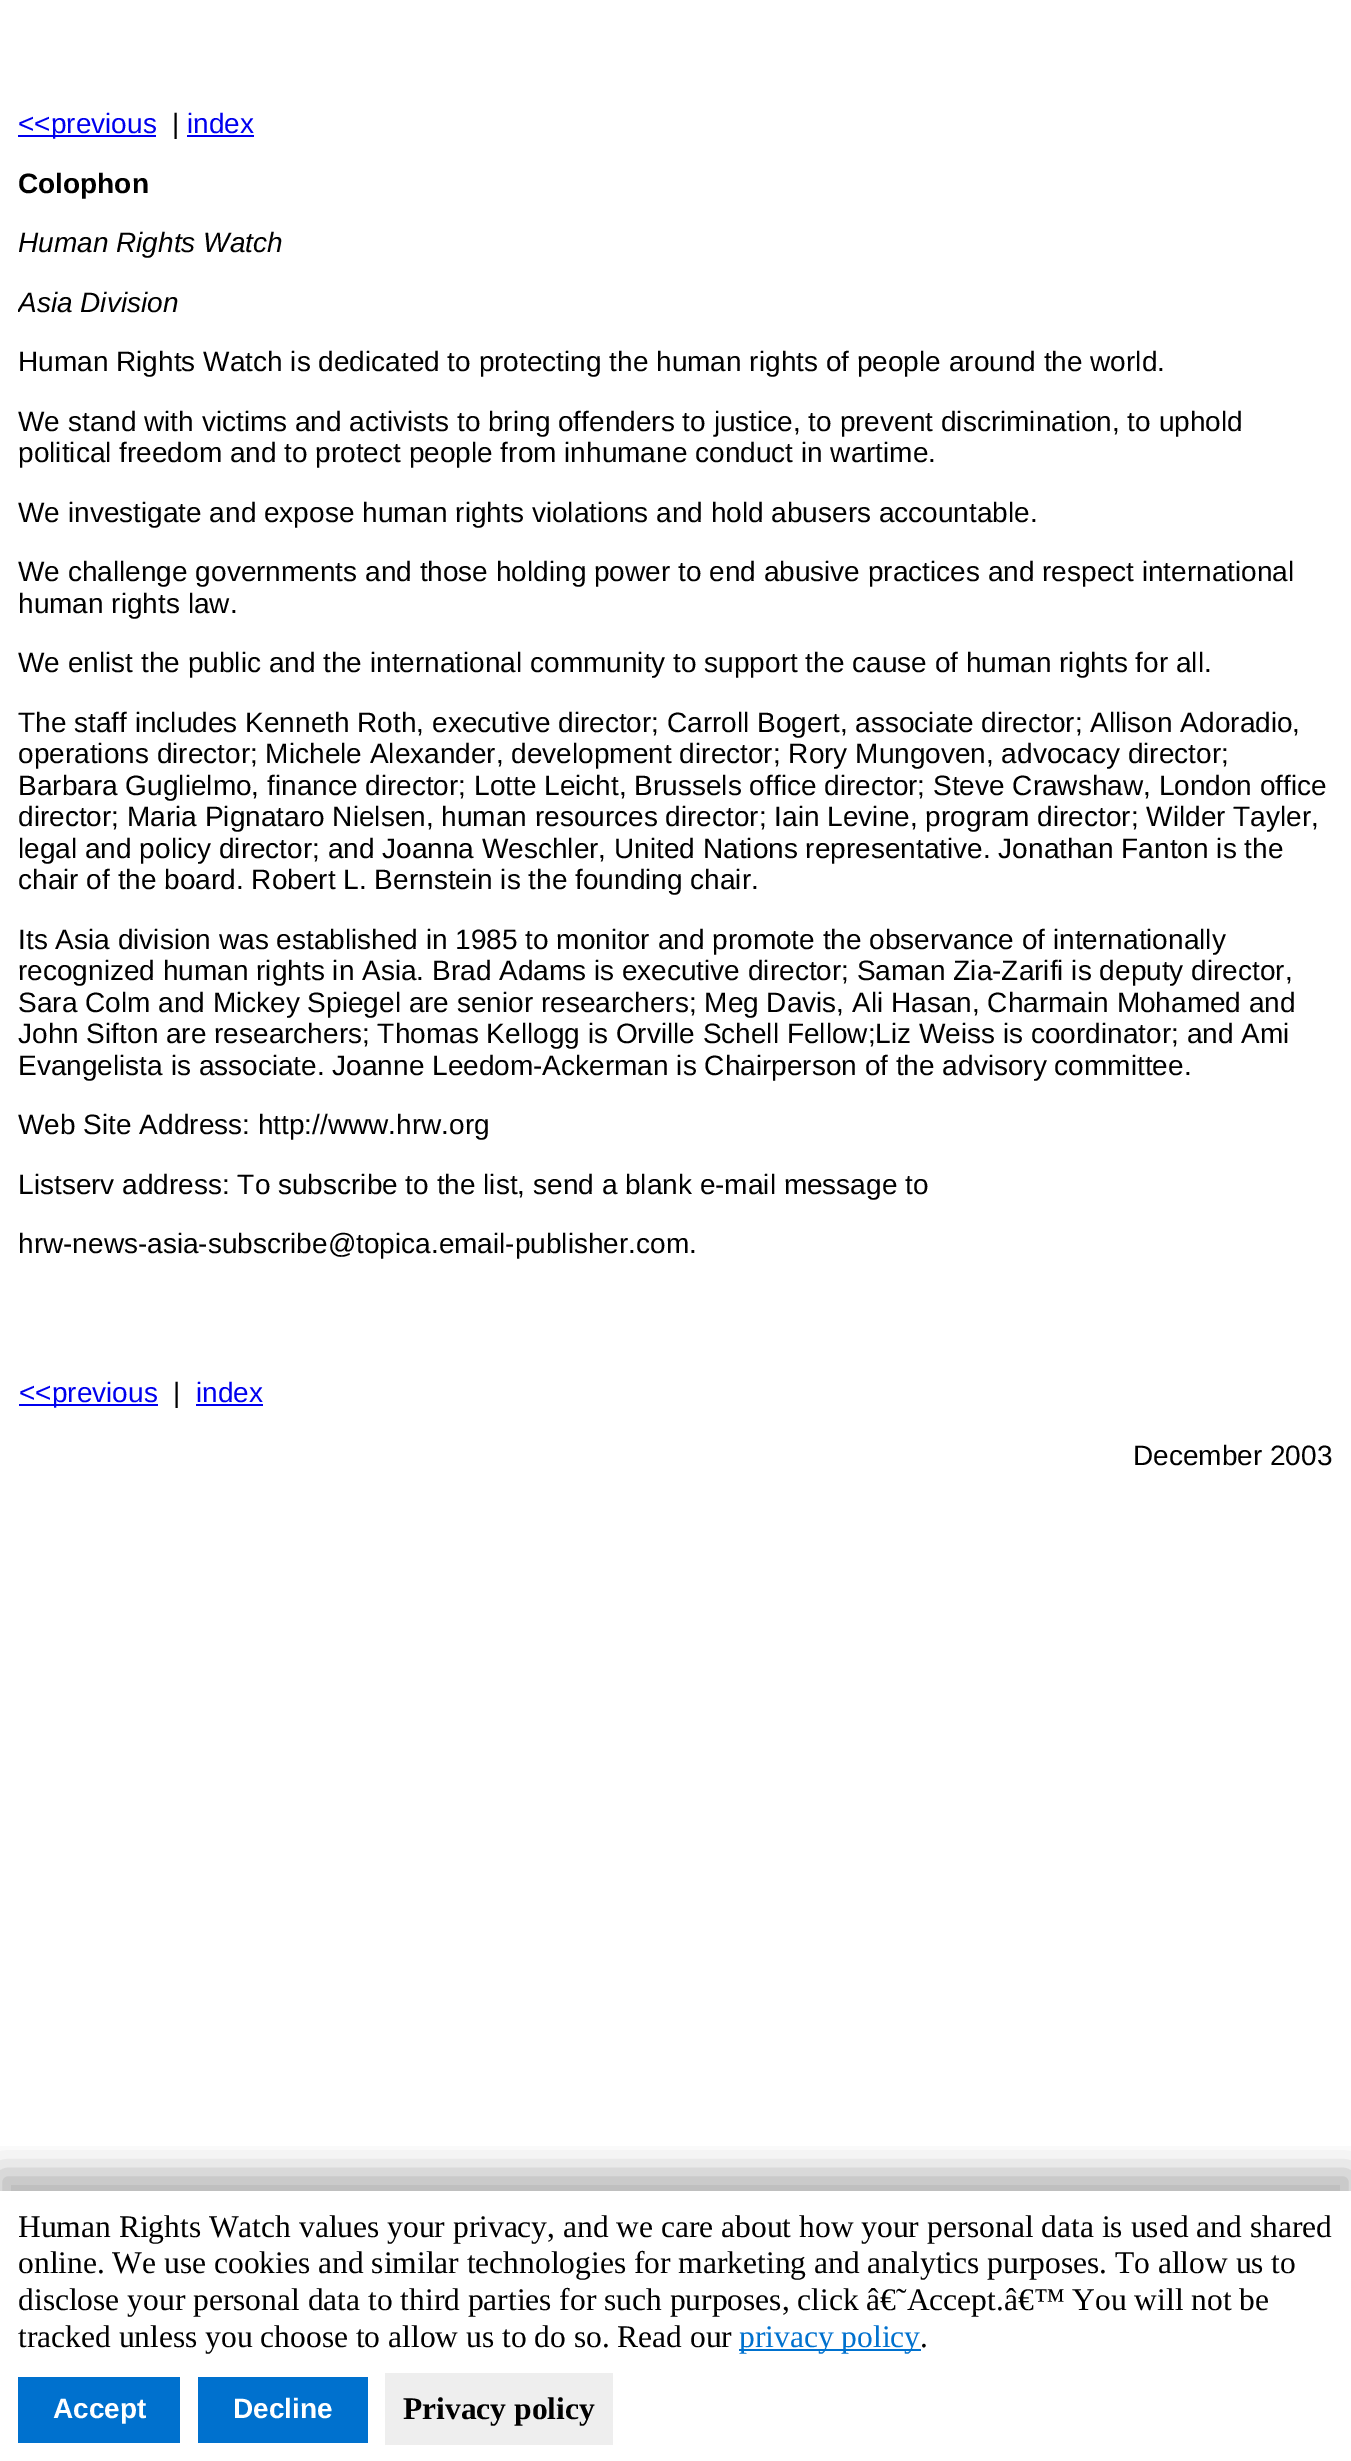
%!PS
<< /PageSize [1351 2461] /PageUsesTransparency true >> setpagedevice
/q/gsave load def
/Q_/grestore load def
/C { dup -16 bitshift 255 div exch dup -8 bitshift 255 and 255 div exch 255 and 255 div setrgbcolor } def
/F { [ exch dup neg 0 0 3 -1 roll 0 0 ] selectfont } def
/T { moveto show } def
/R { rectfill } def
/A { dup .setfillconstantalpha .setstrokeconstantalpha } def
/Q { 5 dict begin { /r /h /w /y /x } { exch def } forall
  x r add y moveto x w add y 2 copy h add r arct x w add y h add x 1 index r arct
  x y h add x y r arct x y 2 copy exch w add exch r arct closepath end } def
/S { 12 dict begin { /a /b /q /h /w /y /x } { exch def } forall gsave /was 0 def
  9 -2 -9 { dup b mul 4 div /e exch def 1 sub .425 mul 2.718 exch exp 1 add a .99 .min exch div /now exch def
    1 1 now sub 1 was sub div sub A /was now def
    w h .min e 2 mul add 0 gt { x e sub y e sub w e 2 mul add h e 2 mul add
      q e add b .6 mul add w h .min 2 div e add .min 0 .max Q fill } if } for grestore end } def
0 .pushpdf14devicefilter
0 2461 translate 1 -1 scale
4 setmiterlimit
16#FFFFFF C
0 0 1351 2461 R
16#0000EE C
18 135 138 2 R
/LiberationSans-Regular 28 F
(<<previous) 18 133 T
16#000000 C
(|) 172 133 T
16#0000EE C
(index) 187 133 T
187 135 67 2 R
/LiberationSans-Bold 28 F
16#000000 C
(Colophon) 18 193 T
/LiberationSans-Italic 28 F
(Human Rights Watch) 18 252 T
q
18 49 1316 1425 rectclip
(Asia Division) 18 312 T
Q_
/LiberationSans-Regular 28 F
(Human Rights Watch is dedicated to protecting the human rights of people around the world.) 18 371 T
(We stand with victims and activists to bring offenders to justice, to prevent discrimination, to uphold) 18 431 T
(political freedom and to protect people from inhumane conduct in wartime.) 18 462 T
(We investigate and expose human rights violations and hold abusers accountable.) 18 522 T
(We challenge governments and those holding power to end abusive practices and respect international) 18 581 T
(human rights law.) 18 613 T
(We enlist the public and the international community to support the cause of human rights for all.) 18 672 T
(The staff includes Kenneth Roth, executive director; Carroll Bogert, associate director; Allison Adoradio,) 18 732 T
(operations director; Michele Alexander, development director; Rory Mungoven, advocacy director;) 18 763 T
(Barbara Guglielmo, finance director; Lotte Leicht, Brussels office director; Steve Crawshaw, London office) 18 795 T
(director; Maria Pignataro Nielsen, human resources director; Iain Levine, program director; Wilder Tayler,) 18 826 T
(legal and policy director; and Joanna Weschler, United Nations representative. Jonathan Fanton is the) 18 858 T
(chair of the board. Robert L. Bernstein is the founding chair.) 18 889 T
(Its Asia division was established in 1985 to monitor and promote the observance of internationally) 18 949 T
(recognized human rights in Asia. Brad Adams is executive director; Saman Zia-Zarifi is deputy director,) 18 980 T
(Sara Colm and Mickey Spiegel are senior researchers; Meg Davis, Ali Hasan, Charmain Mohamed and) 18 1012 T
(John Sifton are researchers; Thomas Kellogg is Orville Schell Fellow;Liz Weiss is coordinator; and Ami) 18 1043 T
(Evangelista is associate. Joanne Leedom-Ackerman is Chairperson of the advisory committee.) 18 1075 T
(Web Site Address: http://www.hrw.org) 18 1134 T
(Listserv address: To subscribe to the list, send a blank e-mail message to) 18 1194 T
(hrw-news-asia-subscribe@topica.email-publisher.com.) 18 1253 T
16#0000EE C
19 1404 139 2 R
(<<previous) 19 1402 T
16#000000 C
(|) 173 1402 T
16#0000EE C
(index) 196 1402 T
196 1404 67 2 R
16#000000 C
(December 2003) 1133 1465 T
q
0 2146 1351 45 rectclip
-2 2172 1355 275 0 17.5 .3 S
Q_
/LiberationSerif-Regular 31.5 F
(Human Rights Watch values your privacy, and we care about how your personal data is used and shared) 18 2237 T
(online. We use cookies and similar technologies for marketing and analytics purposes. To allow us to) 18 2273 T
(disclose your personal data to third parties for such purposes, click â€˜Accept.â€™ You will not be) 18 2310 T
(tracked unless you choose to allow us to do so. Read our) 18 2347 T
16#0071CE C
739 2349 182 2 R
(privacy policy) 739 2347 T
16#000000 C
(.) 920 2347 T
16#0071CE C
18 2377 162 66 R
/LiberationSans-Bold 28 F
16#FFFFFF C
(Accept) 53 2418 T
16#0071CE C
198 2377 170 66 R
16#FFFFFF C
(Decline) 233 2418 T
16#EEEEEE C
385 2373 228 72 R
/LiberationSerif-Bold 31.5 F
16#000000 C
(Privacy policy) 403 2419 T
.poppdf14devicefilter showpage
